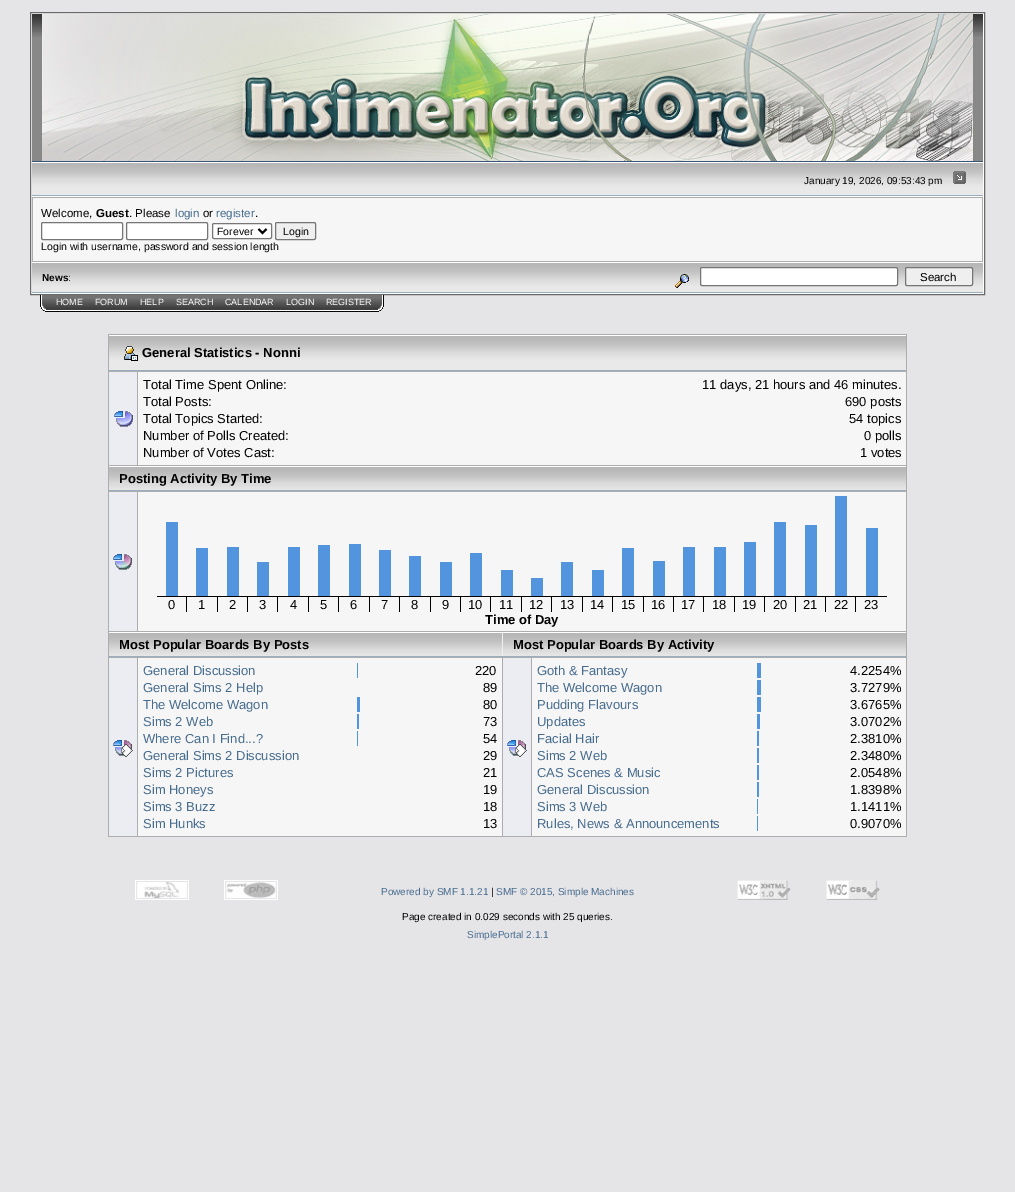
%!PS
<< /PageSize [1015 1192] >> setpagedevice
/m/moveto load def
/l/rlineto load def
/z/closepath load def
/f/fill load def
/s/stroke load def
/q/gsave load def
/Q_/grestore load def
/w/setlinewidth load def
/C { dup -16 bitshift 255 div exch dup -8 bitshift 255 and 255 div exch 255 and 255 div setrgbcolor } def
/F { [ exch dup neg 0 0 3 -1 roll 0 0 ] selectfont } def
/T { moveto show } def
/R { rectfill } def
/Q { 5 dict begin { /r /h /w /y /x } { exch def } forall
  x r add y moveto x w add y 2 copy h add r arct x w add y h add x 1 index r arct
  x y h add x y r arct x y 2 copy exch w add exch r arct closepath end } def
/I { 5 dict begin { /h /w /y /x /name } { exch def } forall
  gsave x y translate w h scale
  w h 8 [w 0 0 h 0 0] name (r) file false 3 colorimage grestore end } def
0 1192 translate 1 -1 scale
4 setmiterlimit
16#E5E5E8 C
0 0 1015 1192 R
16#FFFFFF C
30.5 12.5 m 954 0 l 0 282 l -954 0 l z q f Q_
16#696969 C
s
16#888888 C
32 37 951 124 R
(1.rgb) 32 14 951 23 I
16#375576 C
32 161 951 1 R
(2.rgb) 42 14 931 147 I
(3.rgb) 32 163 951 32 I
16#9BAEBF C
32 195 951 1 R
/LiberationSans-Regular 10 F
16#000000 C
(January 19, 2026, 09:53:43 pm) 804 184 T
(4.rgb) 953 171 13 13 I
16#ADADAD C
32 197 951 65 R
16#F6F6F6 C
33 198 949 63 R
/LiberationSans-Regular 11.5 F
16#000000 C
(Welcome,) 41 217 T
/LiberationSans-Bold 11.5 F
(Guest) 96 217 T
/LiberationSans-Regular 11.5 F
(. Please) 129 217 T
16#476C8E C
(login) 175 217 T
16#000000 C
(or) 203 217 T
16#476C8E C
(register) 216 217 T
16#000000 C
(.) 255 217 T
16#FFFFFF C
41.5 222.5 81 17 1.5 Q q f Q_
16#767676 C
s
16#FFFFFF C
126.5 222.5 81 17 1.5 Q q f Q_
16#767676 C
s
16#FFFFFF C
212.5 223.5 59 15 1.5 Q q f Q_
16#767676 C
s
16#000000 C
2 w
258.5 229 m 4 4 l 4 -4 l s
/LiberationSans-Regular 10.5 F
(Forever) 217 235 T
16#EFEFEF C
275.5 222.5 40 17 1.5 Q q f Q_
16#767676 C
1 w
s
16#000000 C
(Login) 283 235 T
(Login with username, password and session length) 41 250 T
(5.rgb) 32 263 626 29 I
16#9BAEBF C
32 292 951 1 R
/LiberationSans-Bold 10 F
16#000000 C
(News) 42 281 T
/LiberationSans-Regular 10 F
(:) 68 281 T
(6.rgb) 658 263 325 29 I
(7.rgb) 675 274 14 14 I
16#FFFFFF C
700.5 267.5 197 18 1.5 Q q f Q_
16#767676 C
s
16#EFEFEF C
905.5 267.5 67 18 1.5 Q q f Q_
16#767676 C
s
/LiberationSans-Regular 11.5 F
16#000000 C
(Search) 920 281 T
(8.rgb) 40 295 10 17 I
(9.rgb) 50 295 39 17 I
/LiberationSans-Regular 9 F
16#FFFFFF C
(HOME) 56 305 T
(10.rgb) 89 295 45 17 I
(FORUM) 95 305 T
(11.rgb) 134 295 36 17 I
(HELP) 140 305 T
(12.rgb) 170 295 49 17 I
(SEARCH) 176 305 T
(13.rgb) 219 295 61 17 I
(CALENDAR) 225 305 T
(14.rgb) 280 295 40 17 I
(LOGIN) 286 305 T
(15.rgb) 320 295 58 17 I
(REGISTER) 326 305 T
(16.rgb) 378 295 6 17 I
16#ADADAD C
108 334 799 503 R
(17.rgb) 109 336 797 34 I
16#FFFFFF C
109 335 797 1 R
16#9BAEBF C
109 370 797 1 R
(18.rgb) 124 346 14 15 I
/LiberationSans-Bold 13 F
16#000000 C
(General Statistics - Nonni) 142 357 T
16#ECEDF3 C
109 372 28 93 R
(19.rgb) 114 411 19 16 I
16#F6F6F6 C
138 372 768 93 R
/LiberationSans-Regular 13 F
16#000000 C
(Total Time Spent Online:) 143 389 T
(11 days, 21 hours and 46 minutes.) 702 389 T
(Total Posts:) 143 406 T
(690 posts) 845 406 T
(Total Topics Started:) 143 423 T
(54 topics) 849 423 T
(Number of Polls Created:) 143 440 T
(0 polls) 864 440 T
(Number of Votes Cast:) 143 457 T
(1 votes) 860 457 T
(20.rgb) 109 467 797 23 I
16#FFFFFF C
109 466 797 1 R
16#9BAEBF C
109 490 797 1 R
/LiberationSans-Bold 13 F
16#000000 C
(Posting Activity By Time) 119 483 T
16#ECEDF3 C
109 492 28 139 R
(21.rgb) 113 554 19 16 I
16#F6F6F6 C
138 492 768 139 R
16#5294DE C
166 522 12 74 R
196 548 12 48 R
227 547 12 49 R
257 562 12 34 R
288 547 12 49 R
318 545 12 51 R
349 544 12 52 R
379 550 12 46 R
409 556 12 40 R
440 562 12 34 R
470 553 12 43 R
501 570 12 26 R
531 578 12 18 R
561 562 12 34 R
592 570 12 26 R
622 548 12 48 R
653 561 12 35 R
683 547 12 49 R
714 547 12 49 R
744 542 12 54 R
774 522 12 74 R
805 525 12 71 R
835 496 12 100 R
866 528 12 68 R
16#000000 C
157 596 730 1 R
186 596 1 16 R
/LiberationSans-Regular 13 F
(0) 168 609 T
217 596 1 16 R
(1) 198 609 T
247 596 1 16 R
(2) 229 609 T
277 596 1 16 R
(3) 259 609 T
308 596 1 16 R
(4) 290 609 T
338 596 1 16 R
(5) 320 609 T
369 596 1 16 R
(6) 350 609 T
399 596 1 16 R
(7) 381 609 T
430 596 1 16 R
(8) 411 609 T
460 596 1 16 R
(9) 442 609 T
490 596 1 16 R
(10) 468 609 T
521 596 1 16 R
(11) 499 609 T
551 596 1 16 R
(12) 529 609 T
582 596 1 16 R
(13) 560 609 T
612 596 1 16 R
(14) 590 609 T
643 596 1 16 R
(15) 621 609 T
673 596 1 16 R
(16) 651 609 T
703 596 1 16 R
(17) 681 609 T
734 596 1 16 R
(18) 712 609 T
764 596 1 16 R
(19) 742 609 T
795 596 1 16 R
(20) 773 609 T
825 596 1 16 R
(21) 803 609 T
855 596 1 16 R
(22) 834 609 T
(23) 864 609 T
/LiberationSans-Bold 13 F
(Time of Day) 485 624 T
16#E9F0F6 C
502 633 1 23 R
16#FFFFFF C
109 632 797 1 R
16#9BAEBF C
109 656 797 1 R
(22.rgb) 109 633 393 23 I
16#000000 C
(Most Popular Boards By Posts) 119 649 T
(23.rgb) 503 633 403 23 I
(Most Popular Boards By Activity) 513 649 T
16#ECEDF3 C
109 658 28 178 R
(24.rgb) 113 740 20 17 I
16#F6F6F6 C
138 658 364 178 R
/LiberationSans-Regular 13 F
16#476C8E C
(General Discussion) 143 675 T
16#5294DE C
357 663 1 15 R
16#000000 C
(220) 475 675 T
16#476C8E C
(General Sims 2 Help) 143 692 T
16#000000 C
(89) 483 692 T
16#476C8E C
(The Welcome Wagon) 143 709 T
16#5294DE C
357 697 3 15 R
16#000000 C
(80) 483 709 T
16#476C8E C
(Sims 2 Web) 143 726 T
16#5294DE C
357 714 2 15 R
16#000000 C
(73) 483 726 T
16#476C8E C
(Where Can I Find...?) 143 743 T
16#5294DE C
357 731 1 15 R
16#000000 C
(54) 483 743 T
16#476C8E C
(General Sims 2 Discussion) 143 760 T
16#000000 C
(29) 483 760 T
16#476C8E C
(Sims 2 Pictures) 143 777 T
16#000000 C
(21) 483 777 T
16#476C8E C
(Sim Honeys) 143 794 T
16#000000 C
(19) 483 794 T
16#476C8E C
(Sims 3 Buzz) 143 811 T
16#000000 C
(18) 483 811 T
16#476C8E C
(Sim Hunks) 143 828 T
16#000000 C
(13) 483 828 T
16#ECEDF3 C
503 658 28 178 R
(24.rgb) 507 740 20 17 I
16#F6F6F6 C
532 658 374 178 R
16#476C8E C
(Goth & Fantasy) 537 675 T
16#5294DE C
757 663 4 15 R
16#000000 C
(4.2254%) 850 675 T
16#476C8E C
(The Welcome Wagon) 537 692 T
16#5294DE C
757 680 4 15 R
16#000000 C
(3.7279%) 850 692 T
16#476C8E C
(Pudding Flavours) 537 709 T
16#5294DE C
757 697 4 15 R
16#000000 C
(3.6765%) 850 709 T
16#476C8E C
(Updates) 537 726 T
16#5294DE C
757 714 3 15 R
16#000000 C
(3.0702%) 850 726 T
16#476C8E C
(Facial Hair) 537 743 T
16#5294DE C
757 731 2 15 R
16#000000 C
(2.3810%) 850 743 T
16#476C8E C
(Sims 2 Web) 537 760 T
16#5294DE C
757 748 2 15 R
16#000000 C
(2.3480%) 850 760 T
16#476C8E C
(CAS Scenes & Music) 537 777 T
16#5294DE C
757 765 2 15 R
16#000000 C
(2.0548%) 850 777 T
16#476C8E C
(General Discussion) 537 794 T
16#5294DE C
757 782 2 15 R
16#000000 C
(1.8398%) 850 794 T
16#476C8E C
(Sims 3 Web) 537 811 T
16#5294DE C
757 799 1 15 R
16#000000 C
(1.1411%) 850 811 T
16#476C8E C
(Rules, News & Announcements) 537 828 T
16#5294DE C
757 816 1 15 R
16#000000 C
(0.9070%) 850 828 T
(25.rgb) 135 880 54 20 I
(26.rgb) 224 880 54 20 I
/LiberationSans-Regular 10 F
16#476C8E C
(Powered by SMF 1.1.21) 381 895 T
16#000000 C
(|) 491 895 T
16#476C8E C
(SMF © 2015, Simple Machines) 496 895 T
(27.rgb) 737 880 54 20 I
(28.rgb) 826 880 54 20 I
16#000000 C
(Page created in 0.029 seconds with 25 queries.) 402 920 T
16#476C8E C
(SimplePortal 2.1.1) 467 938 T
showpage
